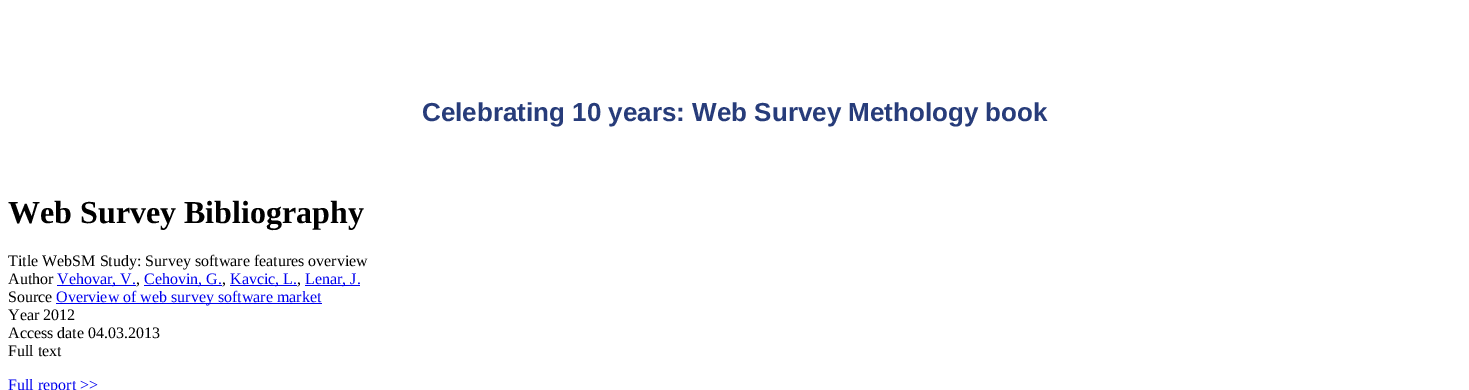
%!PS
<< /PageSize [1469 390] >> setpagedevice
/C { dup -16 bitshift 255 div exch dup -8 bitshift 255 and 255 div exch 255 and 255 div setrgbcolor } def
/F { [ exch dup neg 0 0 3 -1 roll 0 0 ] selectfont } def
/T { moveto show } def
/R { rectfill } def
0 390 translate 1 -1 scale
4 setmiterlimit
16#FFFFFF C
0 0 1469 390 R
/LiberationSans-Bold 26 F
16#273C7A C
(Celebrating 10 years: Web Survey Methology book) 422 121 T
/LiberationSerif-Bold 32 F
16#000000 C
(Web Survey Bibliography) 8 223 T
/LiberationSerif-Regular 16 F
(Title WebSM Study: Survey software features overview) 8 266 T
(Author) 8 284 T
16#0000EE C
57 285 79 1 R
(Vehovar, V.) 57 284 T
16#000000 C
(,) 136 284 T
16#0000EE C
144 285 78 1 R
(Cehovin, G.) 144 284 T
16#000000 C
(,) 222 284 T
16#0000EE C
230 285 67 1 R
(Kavcic, L.) 230 284 T
16#000000 C
(,) 297 284 T
16#0000EE C
305 285 55 1 R
(Lenar, J.) 305 284 T
16#000000 C
(Source) 8 302 T
16#0000EE C
56 303 266 1 R
(Overview of web survey software market) 56 302 T
16#000000 C
(Year 2012) 8 320 T
(Access date 04.03.2013) 8 338 T
(Full text) 8 356 T
16#0000EE C
(Full report >>) 8 390 T
showpage
